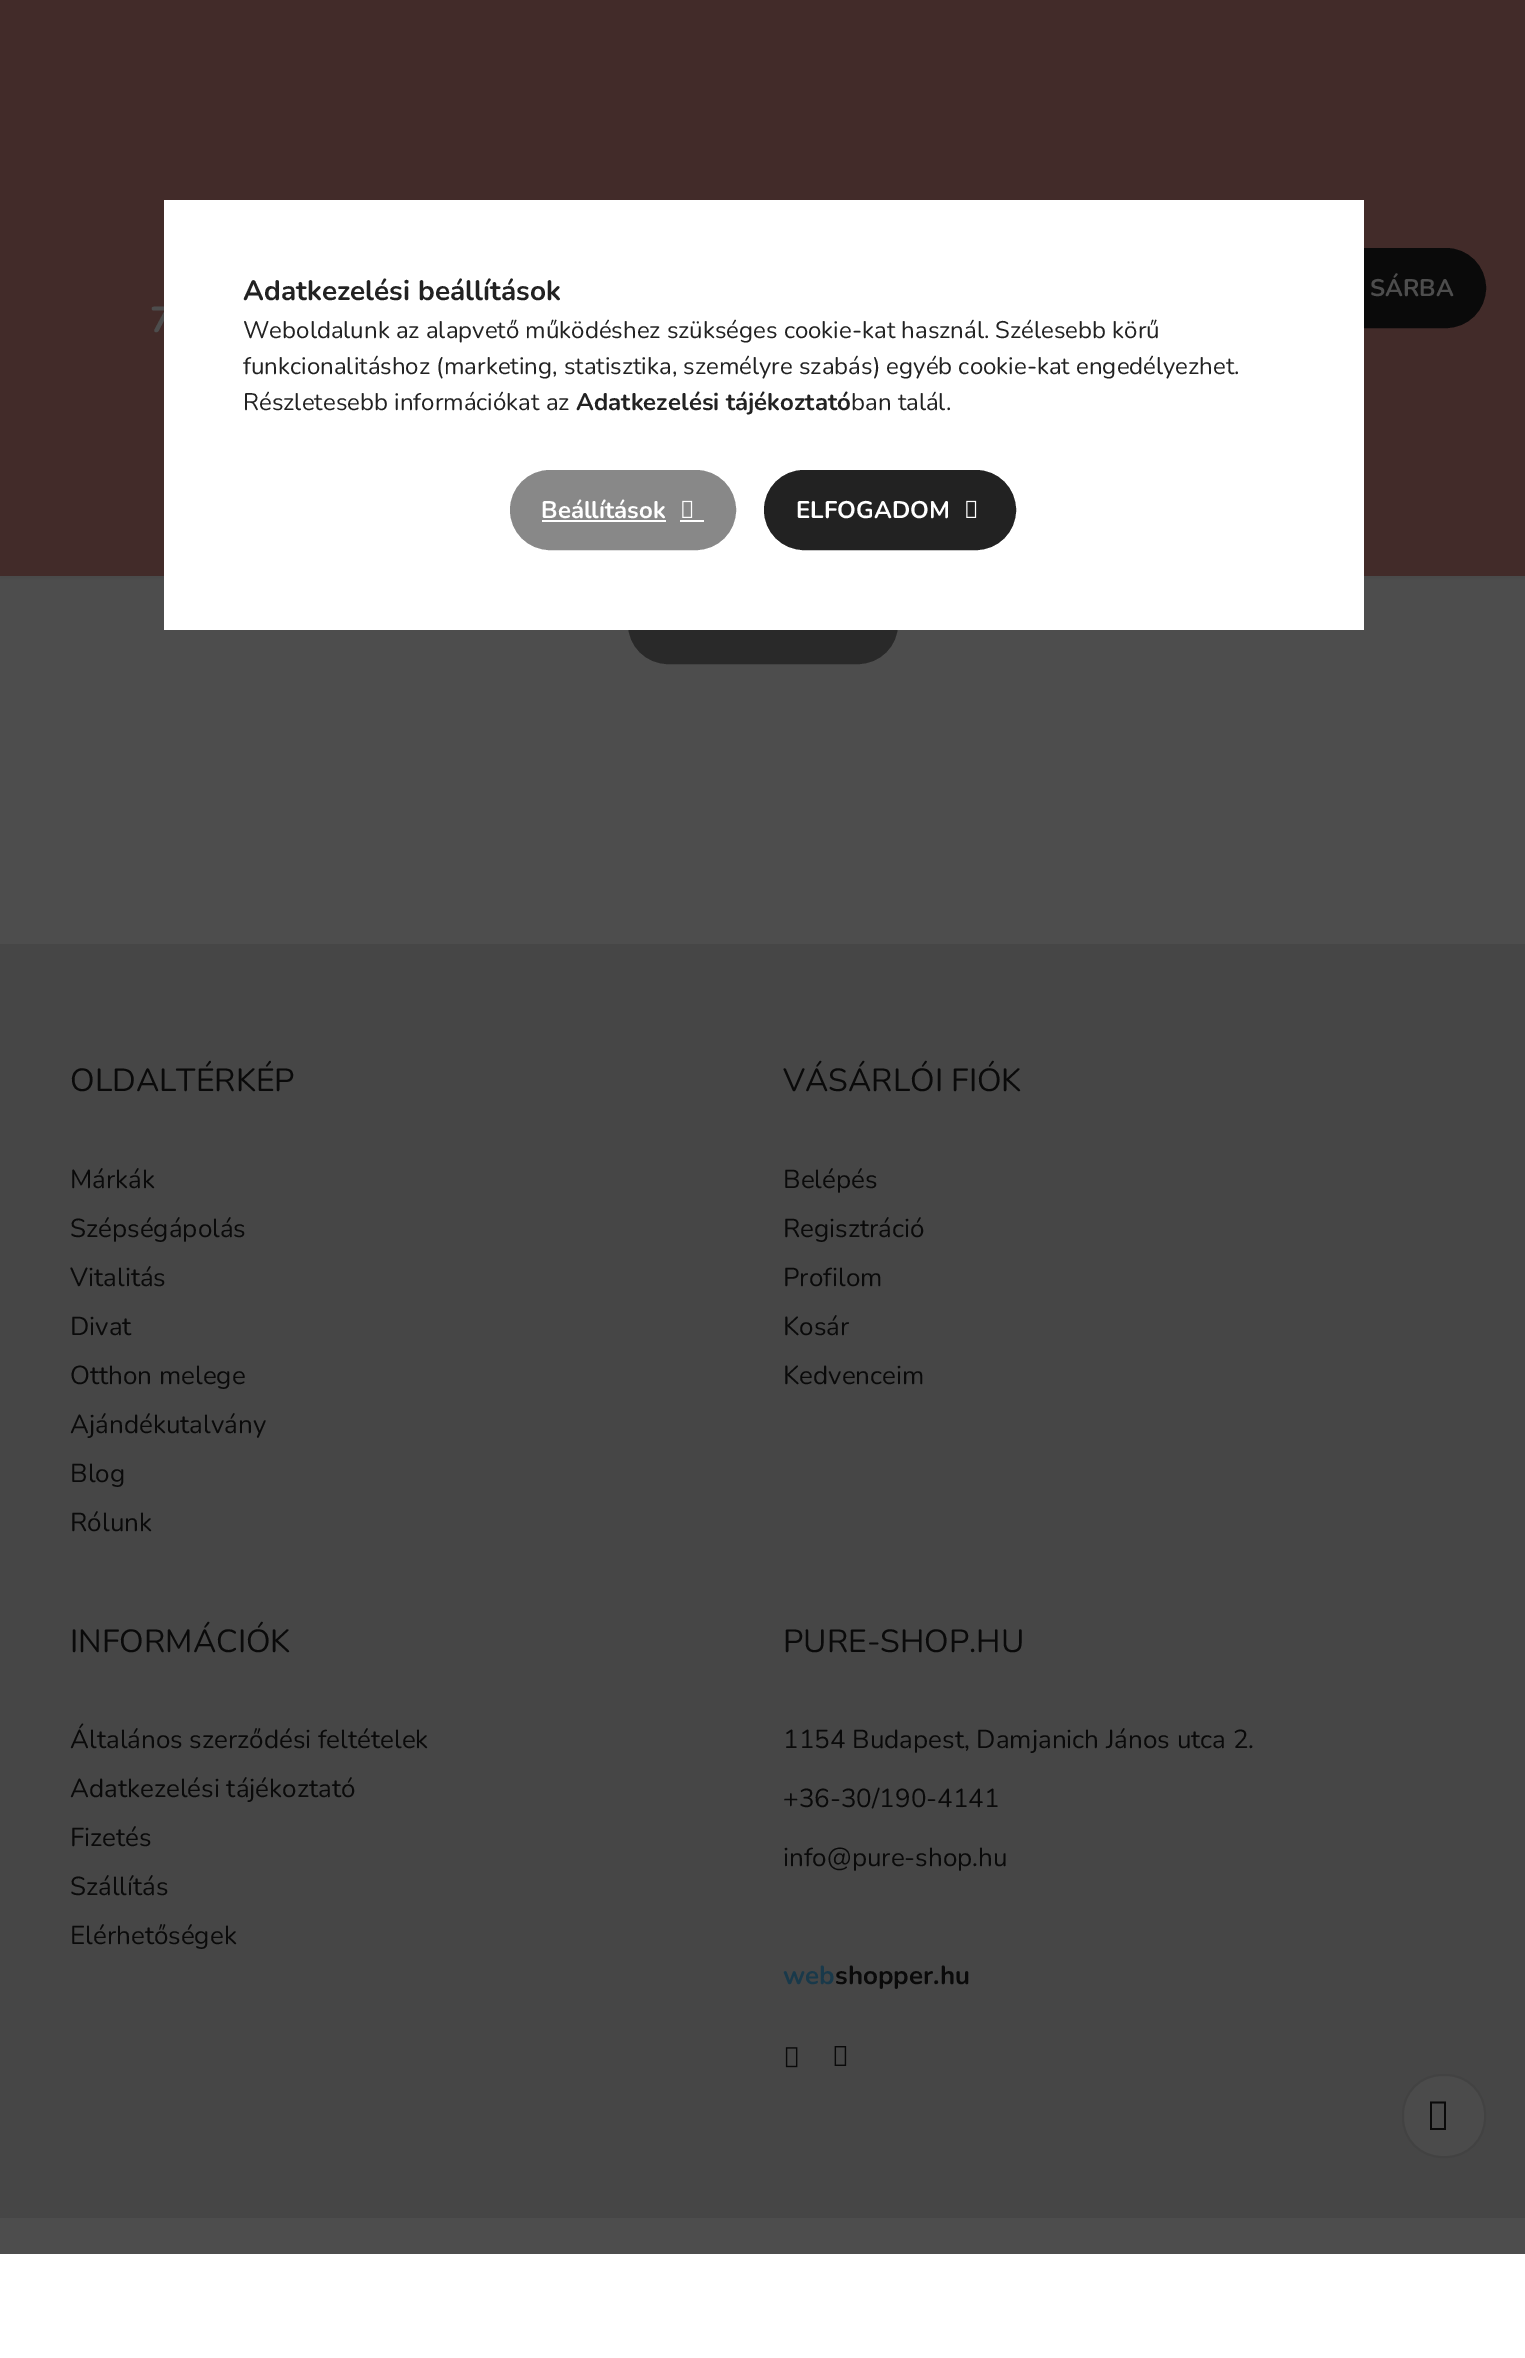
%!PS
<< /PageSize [1525 2358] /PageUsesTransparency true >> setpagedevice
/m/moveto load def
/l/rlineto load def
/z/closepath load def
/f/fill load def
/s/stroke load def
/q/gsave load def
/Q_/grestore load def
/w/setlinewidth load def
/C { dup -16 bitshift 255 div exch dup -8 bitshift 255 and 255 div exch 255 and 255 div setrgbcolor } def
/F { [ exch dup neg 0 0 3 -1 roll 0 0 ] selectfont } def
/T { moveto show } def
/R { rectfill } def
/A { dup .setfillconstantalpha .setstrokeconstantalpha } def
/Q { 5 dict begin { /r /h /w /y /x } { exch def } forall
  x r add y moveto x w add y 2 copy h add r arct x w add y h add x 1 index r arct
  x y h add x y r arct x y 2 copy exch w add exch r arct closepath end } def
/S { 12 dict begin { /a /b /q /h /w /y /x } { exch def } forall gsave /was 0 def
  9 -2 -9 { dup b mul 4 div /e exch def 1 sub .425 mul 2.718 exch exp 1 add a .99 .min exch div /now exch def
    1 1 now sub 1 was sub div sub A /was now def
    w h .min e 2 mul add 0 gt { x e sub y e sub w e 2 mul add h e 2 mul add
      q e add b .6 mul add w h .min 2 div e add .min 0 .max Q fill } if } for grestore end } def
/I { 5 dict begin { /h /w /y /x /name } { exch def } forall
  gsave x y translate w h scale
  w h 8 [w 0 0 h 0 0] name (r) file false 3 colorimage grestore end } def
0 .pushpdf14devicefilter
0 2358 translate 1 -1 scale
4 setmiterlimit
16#FFFFFF C
0 0 1525 2358 R
16#4D4D4D C
0 576 1525 1678 R
16#292929 C
629 585 268 78 39 Q q f Q_
2 w
s
16#000000 C
0 2 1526 576 0 2.5 .07 S
16#422B29 C
0 0 1525 576 R
16#0A0A0A C
1305 249 180 78 39 Q q f Q_
s
/Nunito-Bold 24 F
16#4D4D4D C
(SÁRBA) 1370 296 T
/Nunito-Bold 36 F
150 332 m -2 0 (7) ashow
16#464646 C
0 944 1525 1274 R
/Nunito-Regular 32 F
16#0A0A0A C
(OLDALTÉRKÉP) 70 1091 T
/Nunito-Regular 26 F
(Márkák) 70 1188 T
(Szépségápolás) 70 1237 T
(Vitalitás) 70 1286 T
(Divat) 70 1335 T
(Otthon melege) 70 1384 T
(Ajándékutalvány) 70 1433 T
(Blog) 70 1482 T
(Rólunk) 70 1531 T
/Nunito-Regular 32 F
(VÁSÁRLÓI FIÓK) 783 1091 T
/Nunito-Regular 26 F
(Belépés) 783 1188 T
(Regisztráció) 783 1237 T
(Profilom) 783 1286 T
(Kosár) 783 1335 T
(Kedvenceim) 783 1384 T
/Nunito-Regular 32 F
(INFORMÁCIÓK) 70 1652 T
/Nunito-Regular 26 F
(Általános szerződési feltételek) 70 1748 T
(Adatkezelési tájékoztató) 70 1797 T
(Fizetés) 70 1846 T
(Szállítás) 70 1895 T
(Elérhetőségek) 70 1944 T
/Nunito-Regular 32 F
(PURE-SHOP.HU) 783 1652 T
/Nunito-Regular 26 F
(1154 Budapest, Damjanich János utca 2.) 783 1748 T
(+36-30/190-4141) 783 1807 T
(info@pure-shop.hu) 783 1866 T
/Nunito-Bold 26 F
16#19394A C
(web) 783 1984 T
16#0A0A0A C
(shopper.hu) 835 1984 T
(1.rgb) 785 2047 13 21 I
(2.rgb) 834 2046 13 20 I
16#FFFFFF C
164 200 1200 430 R
/Nunito-Bold 28 F
16#222222 C
(Adatkezelési beállítások) 243 300 T
/Nunito-Regular 24 F
(Weboldalunk az alapvető működéshez szükséges cookie-kat használ. Szélesebb körű) 243 338 T
(funkcionalitáshoz \(marketing, statisztika, személyre szabás\) egyéb cookie-kat engedélyezhet.) 243 374 T
(Részletesebb információkat az) 243 410 T
/Nunito-Bold 24 F
(Adatkezelési tájékoztató) 576 410 T
/Nunito-Regular 24 F
(ban talál.) 851 410 T
16#888888 C
511 471 224 78 39 Q q f Q_
s
/Nunito-Bold 24 F
16#FFFFFF C
(Beállítások) 541 518 T
542 520 124 2 R
(3.rgb) 682 500 11 18 I
680 520 24 2 R
16#222222 C
765 471 250 78 39 Q q f Q_
s
16#FFFFFF C
(ELFOGADOM) 796 518 T
(4.rgb) 966 500 11 18 I
16#4B4B4B C
1403 2075 82 82 39 Q q f Q_
16#424242 C
s
16#0A0A0A C
1430 2130 m 0 -28.5 l 16 0 l 0 28.5 l z 1432 2128 m 12 0 l 0 -24.5 l -12 0 l z f
.poppdf14devicefilter showpage
